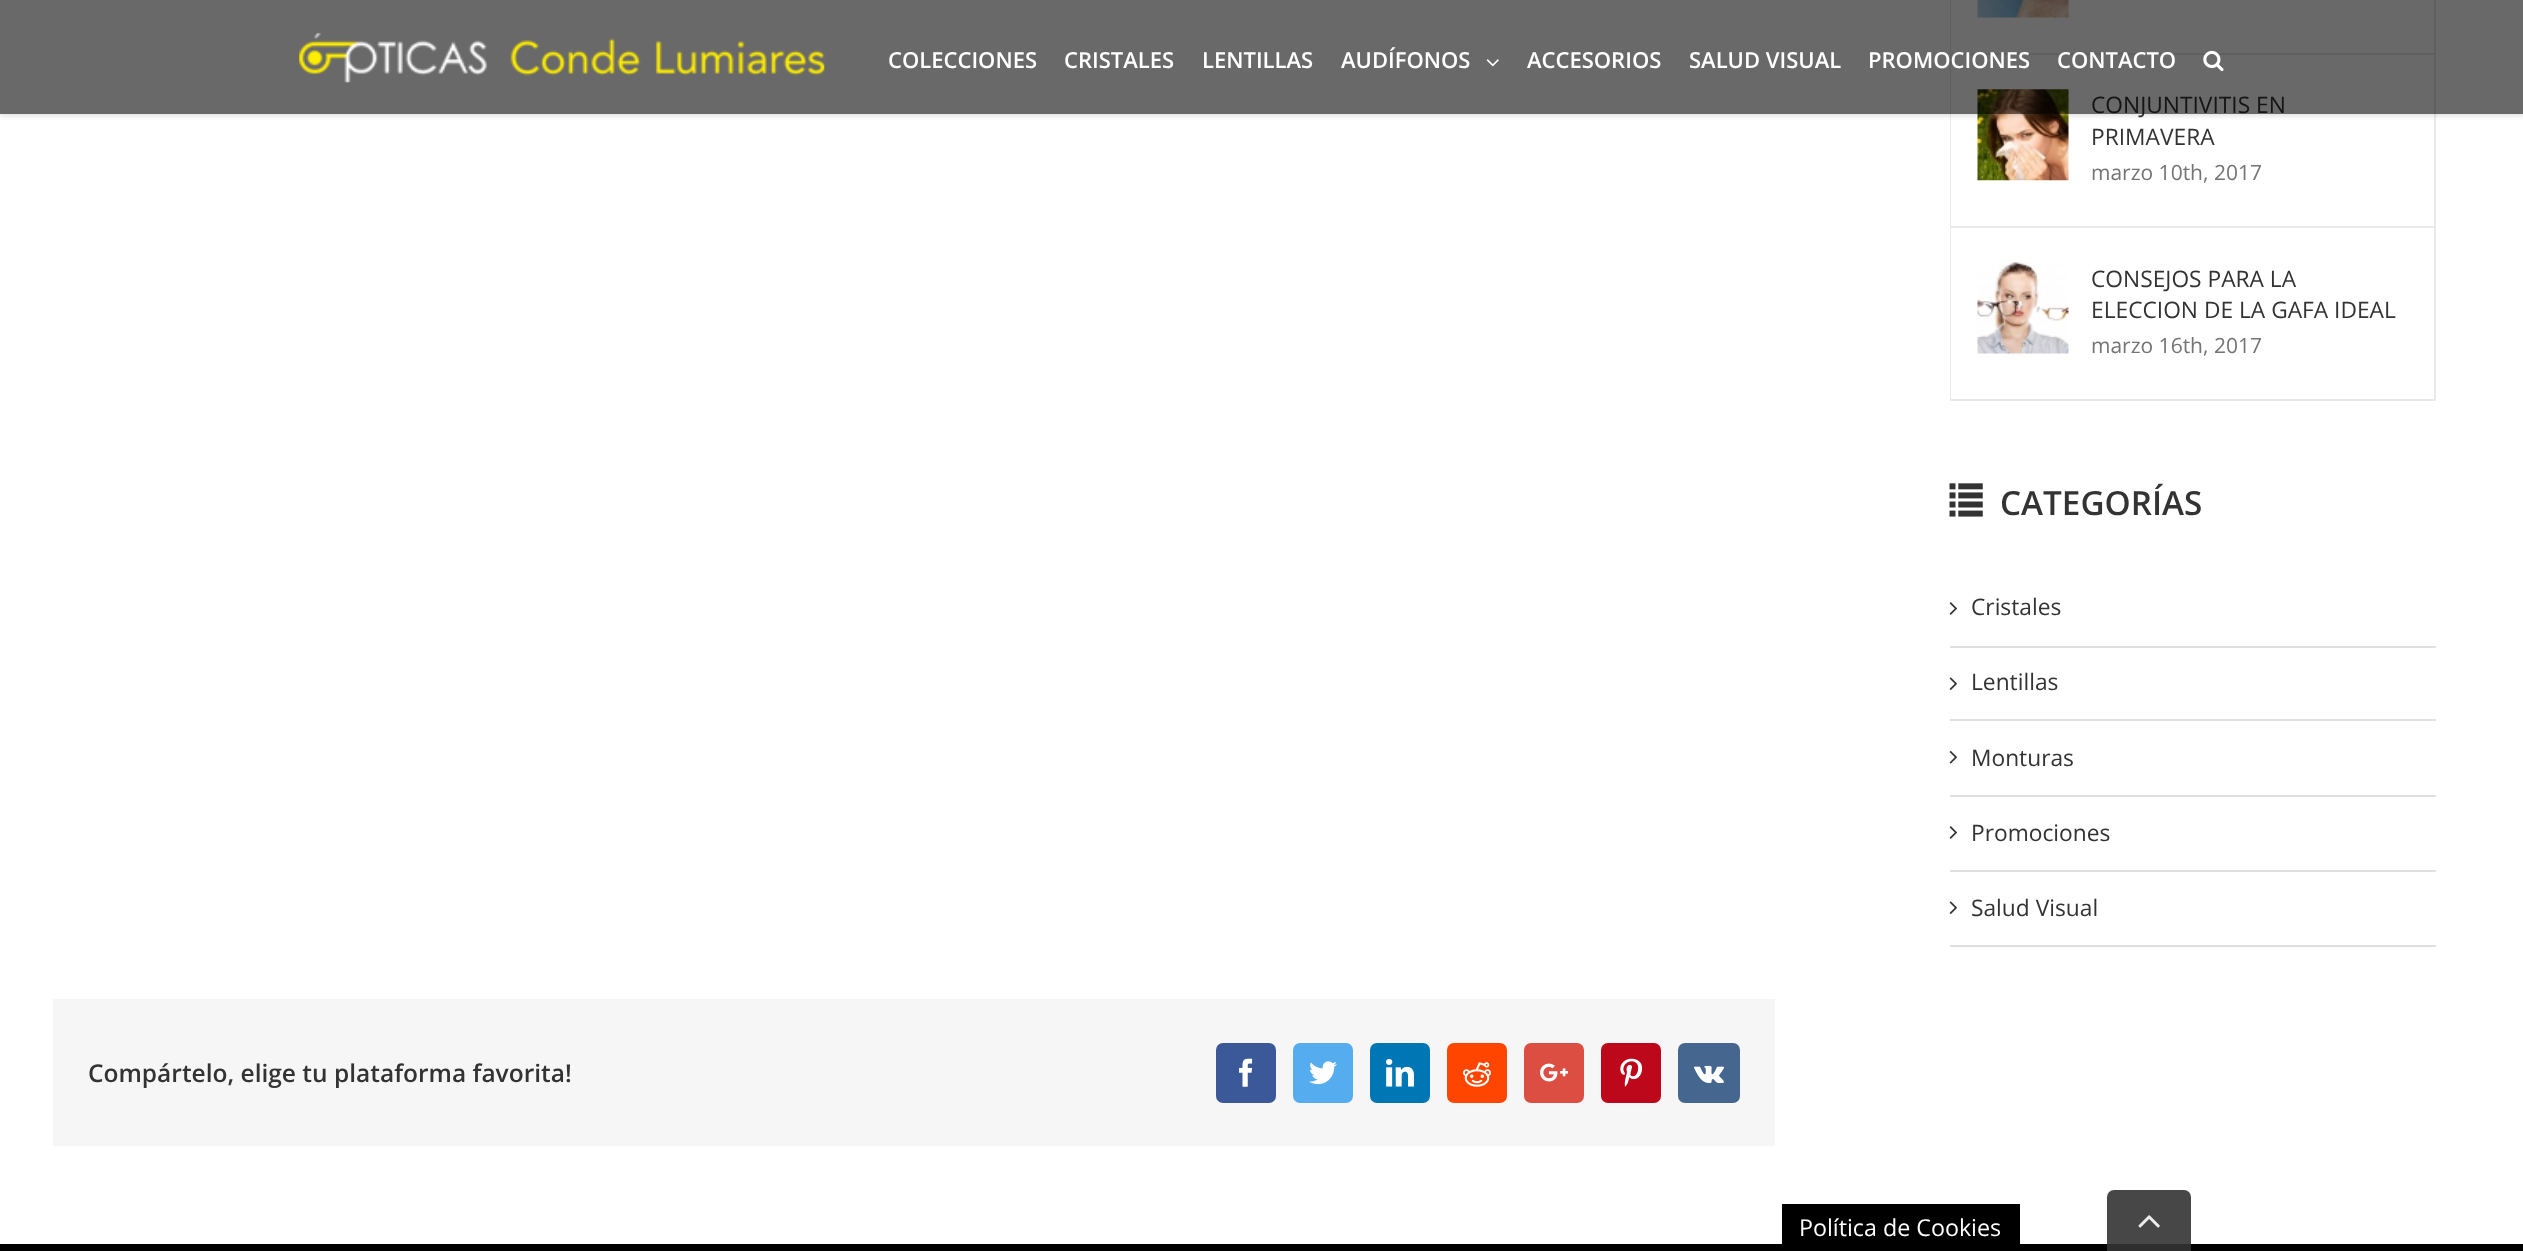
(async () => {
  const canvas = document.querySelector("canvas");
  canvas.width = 2523;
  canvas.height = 1251;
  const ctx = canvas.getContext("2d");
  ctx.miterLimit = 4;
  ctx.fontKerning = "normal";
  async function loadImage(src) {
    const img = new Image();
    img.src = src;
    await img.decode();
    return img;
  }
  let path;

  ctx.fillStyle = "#ffffff";
  ctx.fillRect(0, 0, 2523, 1251);
  ctx.strokeStyle = "#ebeaea";
  ctx.lineWidth = 2;
  ctx.strokeRect(1951, -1, 484, 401);
  ctx.fillRect(1951, 0, 1, 399);
  ctx.fillStyle = "#ebeaea";
  ctx.fillRect(1951, 53, 483, 2);
  ctx.drawImage(await loadImage("img/4.png"), 1977, 0, 92, 18);
  ctx.drawImage(await loadImage("img/5.png"), 1977, 89, 92, 92);
  ctx.save();
  path = new Path2D("M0 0H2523V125H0ZM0 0H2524V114H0Z");
  ctx.clip(path, "evenodd");
  ctx.fillStyle = "rgba(0, 0, 0, 0.12)";
  ctx.filter = "blur(2.5px)";
  ctx.beginPath();
  ctx.rect(0, 2, 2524, 114);
  ctx.fill();
  ctx.filter = "none";
  ctx.restore();
  ctx.fillRect(1951, 226, 483, 2);
  ctx.drawImage(await loadImage("img/6.png"), 1977, 262, 92, 92);
  ctx.drawImage(await loadImage("img/7.png"), 1949, 483, 34, 34);
  ctx.fillStyle = "#e0dede";
  ctx.fillRect(1950, 646, 486, 2);
  ctx.drawImage(await loadImage("img/8.png"), 1949, 602, 8, 13);
  ctx.fillRect(1950, 719, 486, 2);
  ctx.drawImage(await loadImage("img/9.png"), 1949, 677, 8, 13);
  ctx.fillRect(1950, 795, 486, 2);
  ctx.drawImage(await loadImage("img/10.png"), 1949, 751, 8, 13);
  ctx.fillRect(1950, 870, 486, 2);
  ctx.drawImage(await loadImage("img/8.png"), 1949, 826, 8, 13);
  ctx.fillRect(1950, 945, 486, 2);
  ctx.drawImage(await loadImage("img/9.png"), 1949, 901, 8, 13);
  ctx.fillStyle = "#f6f6f6";
  ctx.fillRect(53, 999, 1722, 147);
  ctx.fillStyle = "#3b5998";
  ctx.beginPath();
  ctx.roundRect(1217, 1044, 58, 58, 6);
  ctx.fill();
  ctx.strokeStyle = "#3b5998";
  ctx.stroke();
  ctx.drawImage(await loadImage("img/11.png"), 1239, 1058, 14, 29);
  ctx.fillStyle = "#55acee";
  ctx.beginPath();
  ctx.roundRect(1294, 1044, 58, 58, 6);
  ctx.fill();
  ctx.strokeStyle = "#55acee";
  ctx.stroke();
  ctx.drawImage(await loadImage("img/12.png"), 1309, 1061, 28, 24);
  ctx.fillStyle = "#0077b5";
  ctx.beginPath();
  ctx.roundRect(1371, 1044, 58, 58, 6);
  ctx.fill();
  ctx.strokeStyle = "#0077b5";
  ctx.stroke();
  ctx.drawImage(await loadImage("img/13.png"), 1386, 1059, 28, 28);
  ctx.fillStyle = "#ff4500";
  ctx.beginPath();
  ctx.roundRect(1448, 1044, 58, 58, 6);
  ctx.fill();
  ctx.strokeStyle = "#ff4500";
  ctx.stroke();
  ctx.drawImage(await loadImage("img/14.png"), 1463, 1062, 28, 25);
  ctx.fillStyle = "#dc4e41";
  ctx.beginPath();
  ctx.roundRect(1525, 1044, 58, 58, 6);
  ctx.fill();
  ctx.strokeStyle = "#dc4e41";
  ctx.stroke();
  ctx.drawImage(await loadImage("img/15.png"), 1540, 1063, 28, 19);
  ctx.fillStyle = "#bd081c";
  ctx.beginPath();
  ctx.roundRect(1602, 1044, 58, 58, 6);
  ctx.fill();
  ctx.strokeStyle = "#bd081c";
  ctx.stroke();
  ctx.drawImage(await loadImage("img/16.png"), 1620, 1058, 23, 29);
  ctx.fillStyle = "#45668e";
  ctx.beginPath();
  ctx.roundRect(1679, 1044, 60, 58, 6);
  ctx.fill();
  ctx.strokeStyle = "#45668e";
  ctx.stroke();
  ctx.drawImage(await loadImage("img/17.png"), 1694, 1065, 30, 18);
  ctx.fillStyle = "#000000";
  ctx.fillRect(0, 1244, 2523, 7);
  ctx.fillRect(1782, 1204, 238, 40);
  ctx.fillStyle = "rgba(51, 51, 51, 0.9)";
  ctx.beginPath();
  ctx.roundRect(2107, 1190, 84, 61, [7, 7, 0, 0]);
  ctx.fill();
  ctx.drawImage(await loadImage("img/18.png"), 2138, 1215, 22, 13);
  ctx.font = "22.75px Open Sans";
  ctx.fillStyle = "#333333";
  ctx.fillText("CONJUNTIVITIS EN", 2091, 113);
  ctx.fillStyle = "rgba(0, 0, 0, 0.59)";
  ctx.fillRect(0, 0, 2523, 114);
  ctx.drawImage(await loadImage("img/3.png"), 2203, 50, 21, 22);
  ctx.font = "600 22px Open Sans";
  ctx.fillStyle = "#ffffff";
  for (const [text, x, y] of [
    ["CONTACTO", 2057, 68],
    ["PROMOCIONES", 1868, 68],
    ["SALUD VISUAL", 1689, 68],
    ["ACCESORIOS", 1527, 68],
  ]) {
    ctx.fillText(text, x, y);
  }
  ctx.drawImage(await loadImage("img/2.png"), 1486, 59, 13, 8);
  for (const [text, x, y] of [
    ["AUDÍFONOS", 1341, 68],
    ["LENTILLAS", 1202, 68],
    ["CRISTALES", 1064, 68],
    ["COLECCIONES", 888, 68],
  ]) {
    ctx.fillText(text, x, y);
  }
  ctx.drawImage(await loadImage("img/1.png"), 299, 32, 526, 51);
  ctx.font = "22.75px Open Sans";
  ctx.fillStyle = "#333333";
  ctx.fillText("PRIMAVERA", 2091, 145);
  ctx.font = "21px Open Sans";
  ctx.fillStyle = "#747474";
  ctx.fillText("marzo 10th, 2017", 2091, 180);
  ctx.font = "22.75px Open Sans";
  ctx.fillStyle = "#333333";
  ctx.fillText("CONSEJOS PARA LA", 2091, 287);
  ctx.fillText("ELECCION DE LA GAFA IDEAL", 2091, 318);
  ctx.font = "21px Open Sans";
  ctx.fillStyle = "#747474";
  ctx.fillText("marzo 16th, 2017", 2091, 353);
  ctx.font = "600 33.25px Open Sans";
  ctx.fillStyle = "#333333";
  ctx.fillText("CATEGORÍAS", 2000, 515);
  ctx.font = "22.75px Open Sans";
  for (const [text, x, y] of [
    ["Cristales", 1971, 615],
    ["Lentillas", 1971, 690],
    ["Monturas", 1971, 766],
    ["Promociones", 1971, 841],
    ["Salud Visual", 1971, 916],
  ]) {
    ctx.fillText(text, x, y);
  }
  ctx.font = "600 24.5px Open Sans";
  ctx.fillText("Compártelo, elige tu plataforma favorita!", 88, 1082);
  ctx.font = "23.25px Open Sans";
  ctx.fillStyle = "#ffffff";
  ctx.fillText("Política de Cookies", 1799, 1236);
})();
